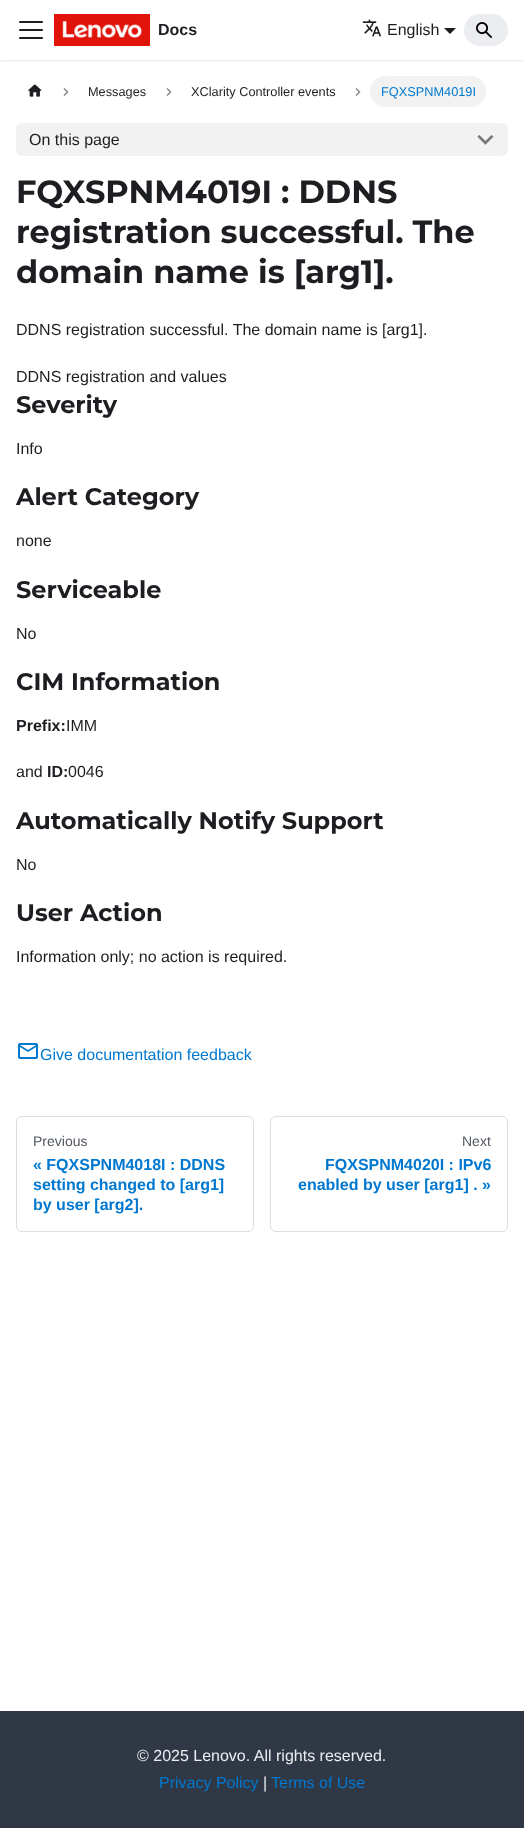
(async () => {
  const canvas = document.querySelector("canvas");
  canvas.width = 524;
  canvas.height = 1828;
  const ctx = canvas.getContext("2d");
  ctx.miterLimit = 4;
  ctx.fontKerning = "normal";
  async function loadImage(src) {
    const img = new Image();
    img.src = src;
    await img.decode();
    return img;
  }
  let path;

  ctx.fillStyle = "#ffffff";
  ctx.fillRect(0, 0, 524, 1828);
  ctx.save();
  ctx.beginPath();
  ctx.rect(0, 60, 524, 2);
  ctx.clip();
  ctx.fillStyle = "rgba(0, 0, 0, 0.1)";
  ctx.filter = "blur(1px)";
  ctx.beginPath();
  ctx.rect(0, 1, 524, 60);
  ctx.fill();
  ctx.filter = "none";
  ctx.restore();
  ctx.drawImage(await loadImage("img/1.png"), 19, 21, 24, 18);
  ctx.drawImage(await loadImage("img/2.png"), 54, 14, 96, 32);
  ctx.drawImage(await loadImage("img/3.png"), 362, 19, 20, 18);
  ctx.fillStyle = "#1c1e21";
  path = new Path2D("M444 28H456L450 34Z");
  ctx.fill(path);
  ctx.fillStyle = "#ebedf0";
  ctx.beginPath();
  ctx.roundRect(464, 14, 44, 32, 16);
  ctx.fill();
  ctx.drawImage(await loadImage("img/4.png"), 476, 22, 16, 16);
  ctx.drawImage(await loadImage("img/5.png"), 28, 84, 14, 13);
  ctx.drawImage(await loadImage("img/6.png"), 63, 88, 6, 8);
  ctx.drawImage(await loadImage("img/6.png"), 166, 88, 6, 8);
  ctx.drawImage(await loadImage("img/6.png"), 355, 88, 6, 8);
  ctx.fillStyle = "#f2f2f2";
  ctx.beginPath();
  ctx.roundRect(370, 76, 116, 31, 15.5);
  ctx.fill();
  ctx.beginPath();
  ctx.roundRect(16, 123, 492, 33, 6);
  ctx.fill();
  ctx.drawImage(await loadImage("img/7.png"), 477, 135, 17, 10);
  ctx.drawImage(await loadImage("img/8.png"), 18, 1043, 20, 16);
  ctx.beginPath();
  ctx.roundRect(16.5, 1116.5, 237, 115, 5.5);
  ctx.strokeStyle = "#dadde1";
  ctx.stroke();
  ctx.beginPath();
  ctx.roundRect(270.5, 1116.5, 237, 115, 5.5);
  ctx.stroke();
  ctx.fillStyle = "#303846";
  ctx.fillRect(0, 1711, 524, 117);
  ctx.font = "bold 16px Liberation Sans";
  ctx.fillStyle = "#1c1e21";
  ctx.fillText("Docs", 158, 35);
  ctx.font = "16px Liberation Sans";
  ctx.fillText("English", 387, 35);
  ctx.font = "12.75px Liberation Sans";
  ctx.fillText("Messages", 88, 96);
  ctx.fillText("XClarity Controller events", 191, 96);
  ctx.fillStyle = "#0078d0";
  ctx.fillText("FQXSPNM4019I", 381, 96);
  ctx.font = "16px Liberation Sans";
  ctx.fillStyle = "#1c1e21";
  ctx.fillText("On this page", 29, 145);
  ctx.font = "bold 32px Montserrat";
  for (const [text, x, y] of [
    ["FQXSPNM4019I : DDNS", 16, 203],
    ["registration successful. The", 16, 243],
    ["domain name is [arg1].", 16, 283],
  ]) {
    ctx.fillText(text, x, y);
  }
  ctx.font = "16px Liberation Sans";
  ctx.fillText("DDNS registration successful. The domain name is [arg1].", 16, 335);
  ctx.fillText("DDNS registration and values", 16, 382);
  ctx.font = "bold 24px Montserrat";
  ctx.fillText("Severity", 16, 413);
  ctx.font = "16px Liberation Sans";
  ctx.fillText("Info", 16, 454);
  ctx.font = "bold 24px Montserrat";
  ctx.fillText("Alert Category", 16, 505);
  ctx.font = "16px Liberation Sans";
  ctx.fillText("none", 16, 546);
  ctx.font = "bold 24px Montserrat";
  ctx.fillText("Serviceable", 16, 598);
  ctx.font = "16px Liberation Sans";
  ctx.fillText("No", 16, 639);
  ctx.font = "bold 24px Montserrat";
  ctx.fillText("CIM Information", 16, 690);
  ctx.font = "bold 16px Liberation Sans";
  ctx.fillText("Prefix:", 16, 731);
  ctx.font = "16px Liberation Sans";
  ctx.fillText("IMM", 66, 731);
  ctx.fillText("and", 16, 777);
  ctx.font = "bold 16px Liberation Sans";
  ctx.fillText("ID:", 47, 777);
  ctx.font = "16px Liberation Sans";
  ctx.fillText("0046", 68, 777);
  ctx.font = "bold 24px Montserrat";
  ctx.fillText("Automatically Notify Support", 16, 829);
  ctx.font = "16px Liberation Sans";
  ctx.fillText("No", 16, 870);
  ctx.font = "bold 24px Montserrat";
  ctx.fillText("User Action", 16, 921);
  ctx.font = "16px Liberation Sans";
  ctx.fillText("Information only; no action is required.", 16, 962);
  ctx.fillStyle = "#0078d0";
  ctx.fillText("Give documentation feedback", 40, 1060);
  ctx.font = "14px Liberation Sans";
  ctx.fillStyle = "#525860";
  ctx.fillText("Previous", 33, 1146);
  ctx.font = "bold 16px Liberation Sans";
  ctx.fillStyle = "#0078d0";
  for (const [text, x, y] of [
    ["« FQXSPNM4018I : DDNS", 33, 1170],
    ["setting changed to [arg1]", 33, 1190],
    ["by user [arg2].", 33, 1210],
  ]) {
    ctx.fillText(text, x, y);
  }
  ctx.font = "14px Liberation Sans";
  ctx.fillStyle = "#525860";
  ctx.fillText("Next", 462, 1146);
  ctx.font = "bold 16px Liberation Sans";
  ctx.fillStyle = "#0078d0";
  ctx.fillText("FQXSPNM4020I : IPv6", 325, 1170);
  ctx.fillText("enabled by user [arg1] . »", 298, 1190);
  ctx.font = "16px Liberation Sans";
  ctx.fillStyle = "#ebedf0";
  ctx.fillText("© 2025 Lenovo. All rights reserved.", 137, 1761);
  ctx.fillStyle = "#0078d0";
  ctx.fillText("Privacy Policy", 159, 1788);
  ctx.fillStyle = "#ebedf0";
  ctx.fillText("|", 263, 1788);
  ctx.fillStyle = "#0078d0";
  ctx.fillText("Terms of Use", 271, 1788);
})();
